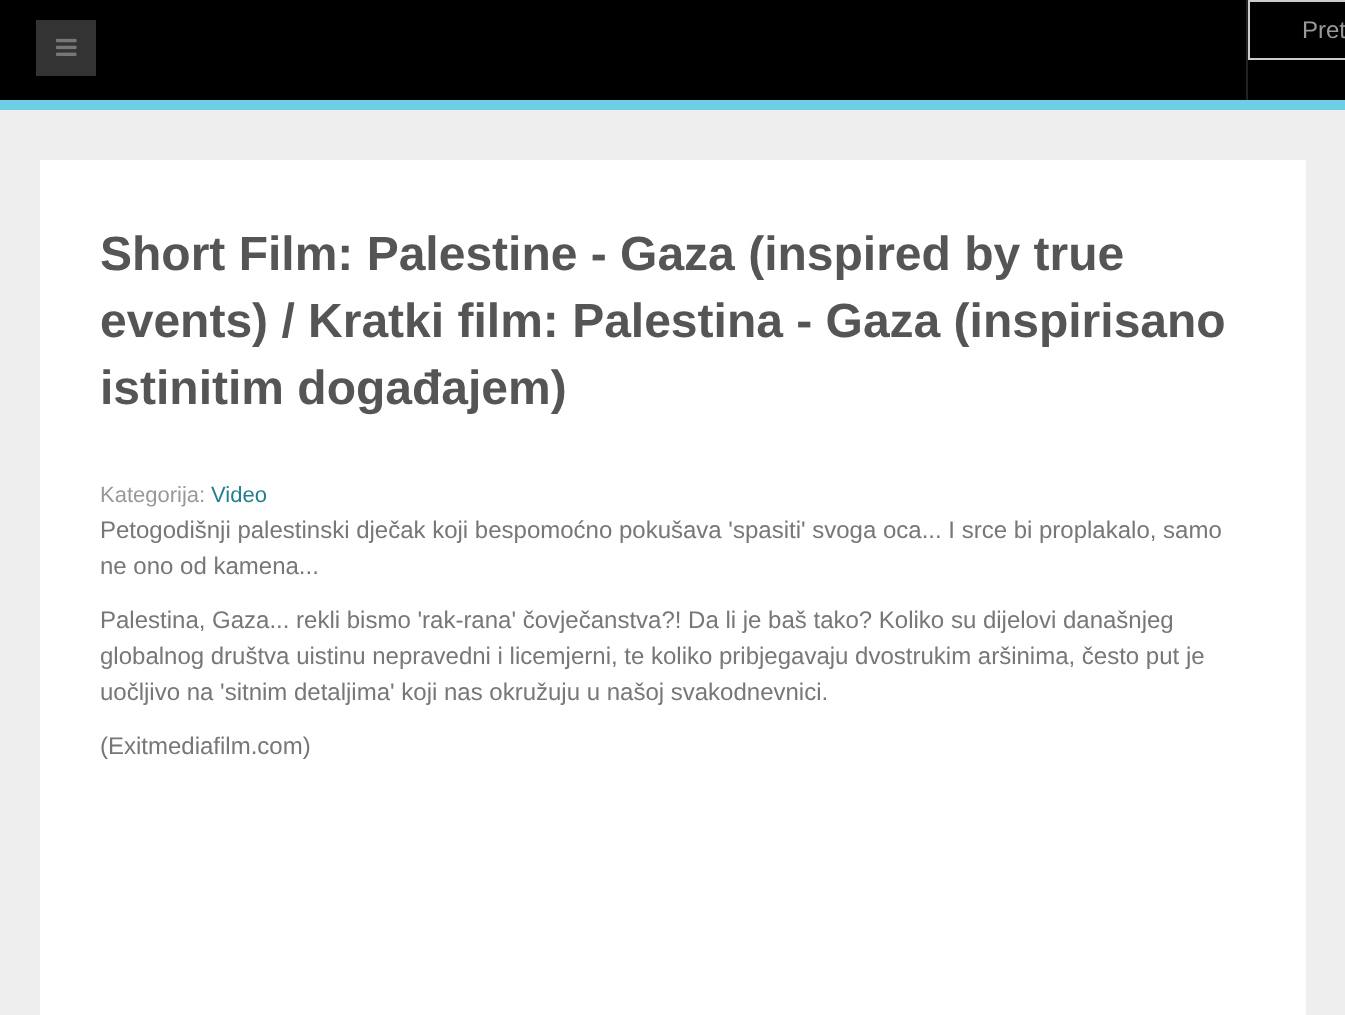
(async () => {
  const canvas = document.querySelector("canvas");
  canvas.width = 1345;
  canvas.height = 1015;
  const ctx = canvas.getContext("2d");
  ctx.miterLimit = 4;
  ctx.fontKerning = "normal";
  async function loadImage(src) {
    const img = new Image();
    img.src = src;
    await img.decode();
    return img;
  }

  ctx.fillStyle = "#eeeeee";
  ctx.fillRect(0, 0, 1345, 1015);
  for (const [x, y, w, h, color] of [
    [0, 0, 1345, 100, "#000000"],
    [0, 100, 1345, 10, "#6fcde4"],
    [36, 20, 60, 56, "#333333"],
  ]) {
    ctx.fillStyle = color;
    ctx.fillRect(x, y, w, h);
  }
  ctx.drawImage(await loadImage("img/1.png"), 56, 38, 21, 18);
  ctx.fillStyle = "#222222";
  ctx.fillRect(1246, 0, 2, 100);
  ctx.strokeStyle = "#cccccc";
  ctx.lineWidth = 2;
  ctx.strokeRect(1249, 1, 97, 58);
  ctx.fillStyle = "#ffffff";
  ctx.fillRect(40, 160, 1266, 855);
  ctx.font = "24px Liberation Sans";
  ctx.fillStyle = "#999999";
  ctx.fillText("Pret", 1302, 38);
  ctx.font = "bold 48px Liberation Sans";
  ctx.fillStyle = "#555555";
  for (const [text, x, y] of [
    ["Short Film: Palestine - Gaza (inspired by true", 100, 270],
    ["events) / Kratki film: Palestina - Gaza (inspirisano", 100, 337],
    ["istinitim događajem)", 100, 404],
  ]) {
    ctx.fillText(text, x, y);
  }
  ctx.font = "22px Liberation Sans";
  ctx.fillStyle = "#999999";
  ctx.fillText("Kategorija:", 100, 502);
  ctx.fillStyle = "#217f90";
  ctx.fillText("Video", 211, 502);
  ctx.font = "24px Liberation Sans";
  ctx.fillStyle = "#777777";
  for (const [text, x, y] of [
    ["Petogodišnji palestinski dječak koji bespomoćno pokušava 'spasiti' svoga oca... I srce bi proplakalo, samo", 100, 538],
    ["ne ono od kamena...", 100, 574],
    ["Palestina, Gaza... rekli bismo 'rak-rana' čovječanstva?! Da li je baš tako? Koliko su dijelovi današnjeg", 100, 628],
    ["globalnog društva uistinu nepravedni i licemjerni, te koliko pribjegavaju dvostrukim aršinima, često put je", 100, 664],
    ["uočljivo na 'sitnim detaljima' koji nas okružuju u našoj svakodnevnici.", 100, 700],
    ["(Exitmediafilm.com)", 100, 754],
  ]) {
    ctx.fillText(text, x, y);
  }
})();
